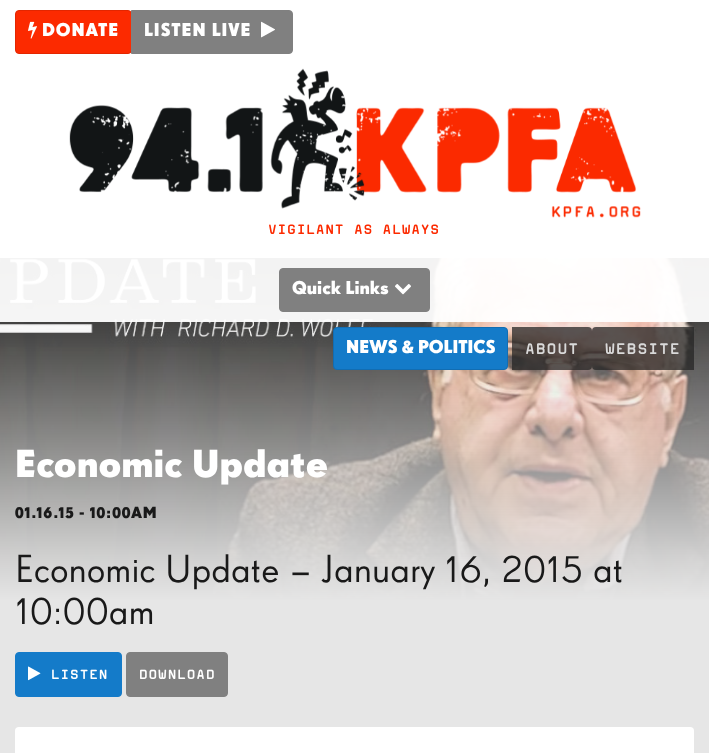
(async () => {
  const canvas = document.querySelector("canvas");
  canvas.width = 709;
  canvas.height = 753;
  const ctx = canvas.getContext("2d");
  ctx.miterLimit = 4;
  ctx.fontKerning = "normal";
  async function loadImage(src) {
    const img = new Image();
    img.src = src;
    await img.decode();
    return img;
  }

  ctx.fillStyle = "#e6e6e6";
  ctx.fillRect(0, 0, 709, 753);
  ctx.fillStyle = "#ffffff";
  ctx.fillRect(0, 0, 709, 258);
  ctx.fillStyle = "#fc2a00";
  ctx.beginPath();
  ctx.roundRect(15.5, 10.5, 116, 43, 3.5);
  ctx.fill();
  ctx.strokeStyle = "#e32600";
  ctx.stroke();
  ctx.drawImage(await loadImage("img/1.png"), 28, 21, 9, 18);
  ctx.fillStyle = "#808080";
  ctx.beginPath();
  ctx.roundRect(131.5, 10.5, 161, 43, [0, 3.5, 3.5, 0]);
  ctx.fill();
  ctx.strokeStyle = "#808080";
  ctx.stroke();
  ctx.drawImage(await loadImage("img/2.png"), 261, 21, 14, 17);
  ctx.drawImage(await loadImage("img/3.png"), 69, 68, 572, 150);
  ctx.drawImage(await loadImage("img/4.png"), 0, 258, 709, 342);
  ctx.fillStyle = "rgba(255, 255, 255, 0.95)";
  ctx.fillRect(0, 258, 709, 64);
  ctx.fillStyle = "#808080";
  ctx.beginPath();
  ctx.roundRect(279.5, 268.5, 150, 43, 3.5);
  ctx.fill();
  ctx.stroke();
  ctx.drawImage(await loadImage("img/5.png"), 395, 284, 16, 11);
  ctx.fillStyle = "#147bc9";
  ctx.beginPath();
  ctx.roundRect(333.5, 327.5, 174, 42, 3.5);
  ctx.fill();
  ctx.strokeStyle = "#126db2";
  ctx.stroke();
  ctx.fillStyle = "rgba(38, 38, 38, 0.75)";
  ctx.beginPath();
  ctx.roundRect(512, 327, 80, 43, [0, 4, 4, 0]);
  ctx.fill();
  ctx.beginPath();
  ctx.roundRect(592, 327, 102, 43, [4, 0, 0, 4]);
  ctx.fill();
  ctx.fillStyle = "#147bc9";
  ctx.beginPath();
  ctx.roundRect(15.5, 652.5, 106, 44, 3.5);
  ctx.fill();
  ctx.strokeStyle = "#147bc9";
  ctx.stroke();
  ctx.drawImage(await loadImage("img/6.png"), 28, 666, 13, 15);
  ctx.fillStyle = "#808080";
  ctx.beginPath();
  ctx.roundRect(126.5, 652.5, 101, 44, 3.5);
  ctx.fill();
  ctx.strokeStyle = "#808080";
  ctx.stroke();
  ctx.fillStyle = "#ffffff";
  ctx.beginPath();
  ctx.roundRect(15, 727, 679, 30, 4);
  ctx.fill();
  ctx.letterSpacing = "0.9px";
  ctx.font = "bold 18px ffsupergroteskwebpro";
  ctx.fillText("DONATE", 42, 36);
  ctx.fillText("LISTEN LIVE", 144, 36);
  ctx.letterSpacing = "0.75px";
  ctx.font = "bold 16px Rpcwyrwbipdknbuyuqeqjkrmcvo";
  ctx.fillStyle = "#fc2a00";
  ctx.fillText("VIGILANT AS ALWAYS", 268, 234);
  ctx.letterSpacing = "0px";
  ctx.font = "bold 18px ffsupergroteskwebpro";
  ctx.fillStyle = "#ffffff";
  ctx.fillText("Quick Links", 292, 294);
  ctx.fillText("NEWS & POLITICS", 346, 353);
  ctx.letterSpacing = "0.9px";
  ctx.font = "bold 18px Rpcwyrwbipdknbuyuqeqjkrmcvo";
  ctx.fillStyle = "#d9d9d9";
  ctx.fillText("ABOUT", 525, 354);
  ctx.fillText("WEBSITE", 605, 354);
  ctx.letterSpacing = "0px";
  ctx.font = "bold 38px ffsupergroteskwebpro";
  ctx.fillStyle = "#ffffff";
  ctx.fillText("Economic Update", 15, 477);
  ctx.letterSpacing = "0.75px";
  ctx.font = "bold 15.75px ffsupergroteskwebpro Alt";
  ctx.fillStyle = "#191919";
  ctx.fillText("01.16.15 - 10:00AM", 15, 518);
  ctx.letterSpacing = "0px";
  ctx.font = "38px ffsupergroteskwebpro Alt";
  ctx.fillText("Economic Update – January 16, 2015 at", 15, 582);
  ctx.fillText("10:00am", 15, 624);
  ctx.letterSpacing = "0.9px";
  ctx.font = "bold 15.75px Rpcwyrwbipdknbuyuqeqjkrmcvo";
  ctx.fillStyle = "#ffffff";
  ctx.fillText("LISTEN", 51, 679);
  ctx.fillText("DOWNLOAD", 139, 679);
})();
